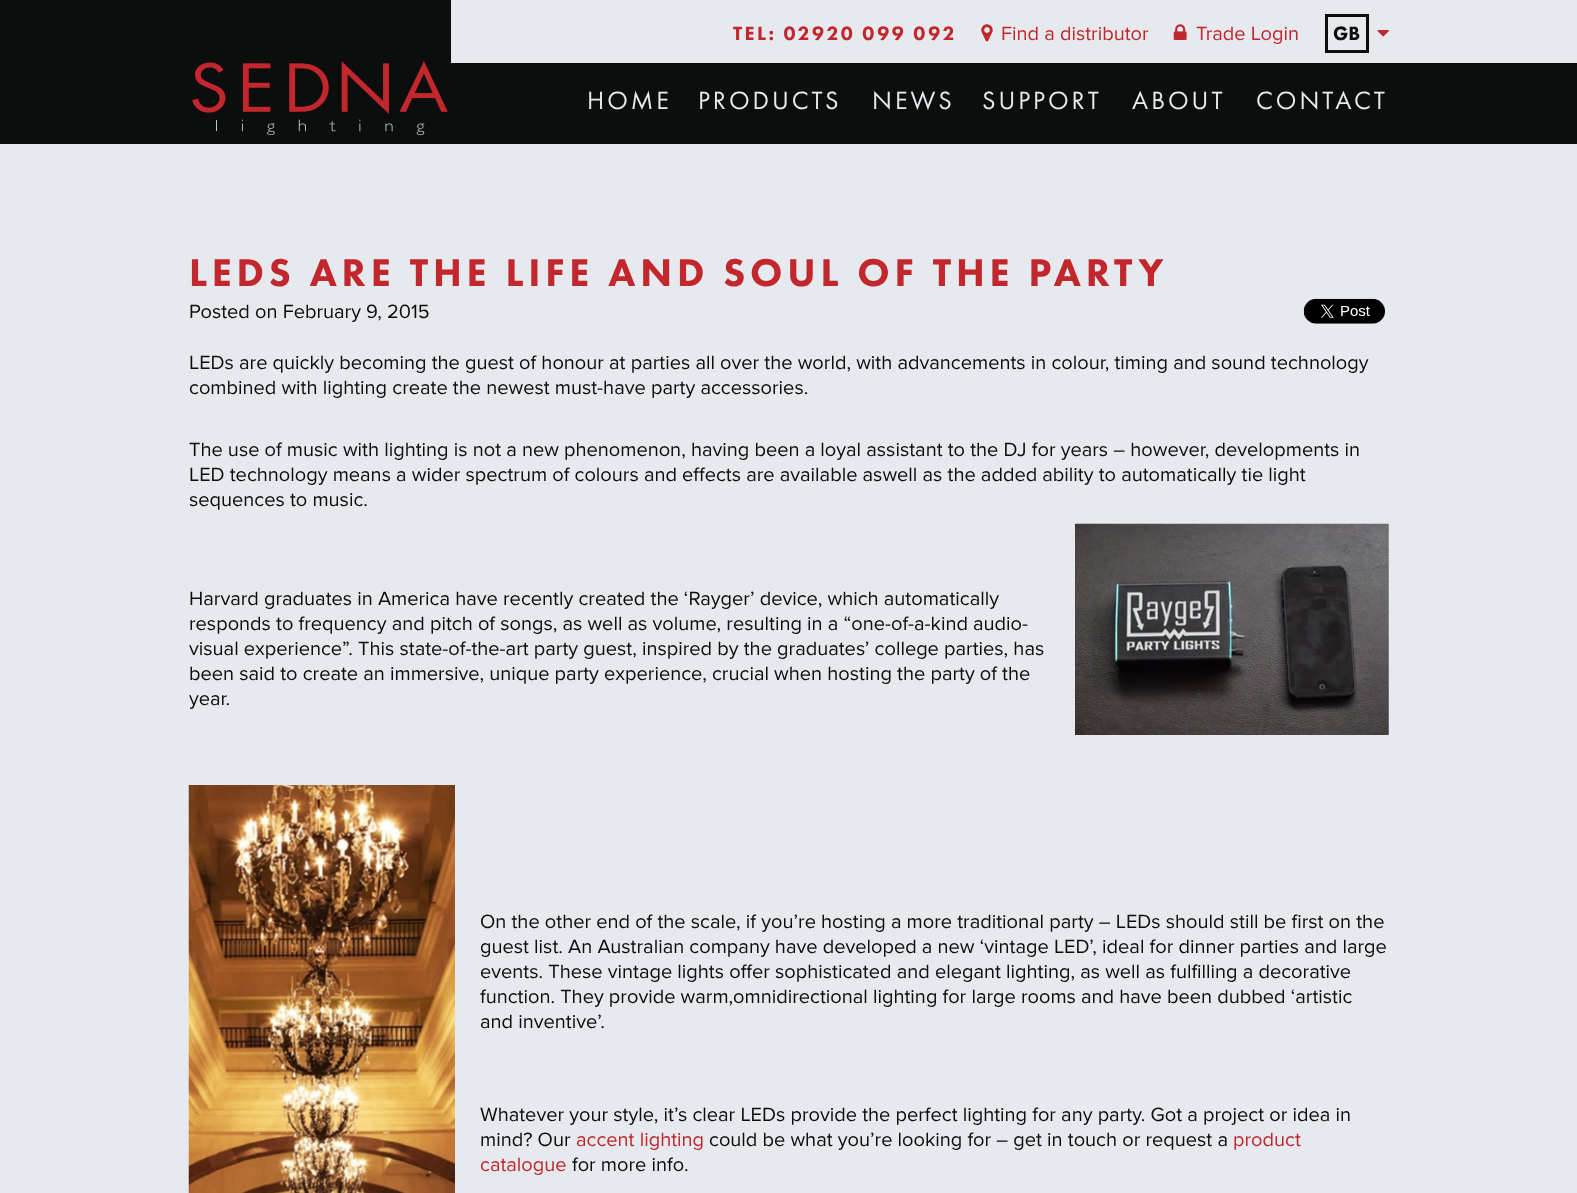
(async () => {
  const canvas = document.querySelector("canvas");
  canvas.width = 1577;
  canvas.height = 1193;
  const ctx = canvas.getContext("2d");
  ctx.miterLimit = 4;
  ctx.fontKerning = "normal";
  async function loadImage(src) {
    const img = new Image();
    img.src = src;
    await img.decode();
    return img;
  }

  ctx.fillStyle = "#e6eaee";
  ctx.fillRect(0, 0, 1577, 1193);
  ctx.fillStyle = "#0c0d0d";
  ctx.fillRect(0, 0, 1577, 144);
  ctx.fillStyle = "#e6eaee";
  ctx.fillRect(451, 0, 1126, 63);
  ctx.drawImage(await loadImage("img/1.png"), 981, 24, 12, 18);
  ctx.drawImage(await loadImage("img/2.png"), 1173, 24, 14, 16);
  ctx.strokeStyle = "#0c0d0d";
  ctx.lineWidth = 3;
  ctx.strokeRect(1326.5, 15.5, 41, 36);
  ctx.drawImage(await loadImage("img/3.png"), 1377, 30, 12, 7);
  ctx.drawImage(await loadImage("img/4.png"), 192, 61, 256, 75);
  ctx.drawImage(await loadImage("img/5.png"), 1303, 298, 82, 26);
  ctx.drawImage(await loadImage("img/6.png"), 1075, 523, 314, 212);
  ctx.drawImage(await loadImage("img/7.png"), 188, 785, 267, 408);
  ctx.letterSpacing = "2.4px";
  ctx.font = "900 20px Futura PT";
  ctx.fillStyle = "#c1272c";
  ctx.fillText("TEL: 02920 099 092", 733, 40);
  ctx.letterSpacing = "0px";
  ctx.font = "20px Proxima Nova";
  ctx.fillText("Find a distributor", 1001, 40);
  ctx.fillText("Trade Login", 1196, 40);
  ctx.font = "900 20px Futura PT";
  ctx.fillStyle = "#0c0d0d";
  ctx.fillText("GB", 1333, 40);
  ctx.letterSpacing = "3px";
  ctx.font = "26px Futura PT";
  ctx.fillStyle = "#e6eaee";
  for (const [text, x, y] of [
    ["HOME", 587, 109],
    ["PRODUCTS", 698, 109],
    ["NEWS", 872, 109],
    ["SUPPORT", 982, 109],
    ["ABOUT", 1132, 109],
    ["CONTACT", 1256, 109],
  ]) {
    ctx.fillText(text, x, y);
  }
  ctx.letterSpacing = "4.8px";
  ctx.font = "900 40px Futura PT";
  ctx.fillStyle = "#c1272c";
  ctx.fillText("LEDS ARE THE LIFE AND SOUL OF THE PARTY", 189, 286);
  ctx.letterSpacing = "0px";
  ctx.font = "20px Proxima Nova";
  ctx.fillStyle = "#0c0d0d";
  for (const [text, x, y] of [
    ["Posted on February 9, 2015", 189, 318],
    ["LEDs are quickly becoming the guest of honour at parties all over the world, with advancements in colour, timing and sound technology", 189, 369],
    ["combined with lighting create the newest must-have party accessories.", 189, 394],
    ["The use of music with lighting is not a new phenomenon, having been a loyal assistant to the DJ for years – however, developments in", 189, 456],
    ["LED technology means a wider spectrum of colours and effects are available aswell as the added ability to automatically tie light", 189, 481],
    ["sequences to music.", 189, 506],
    ["Harvard graduates in America have recently created the ‘Rayger’ device, which automatically", 189, 605],
    ["responds to frequency and pitch of songs, as well as volume, resulting in a “one-of-a-kind audio-", 189, 630],
    ["visual experience”. This state-of-the-art party guest, inspired by the graduates’ college parties, has", 189, 655],
    ["been said to create an immersive, unique party experience, crucial when hosting the party of the", 189, 680],
    ["year.", 189, 705],
    ["On the other end of the scale, if you’re hosting a more traditional party – LEDs should still be first on the", 480, 928],
    ["guest list. An Australian company have developed a new ‘vintage LED’, ideal for dinner parties and large", 480, 953],
    ["events. These vintage lights offer sophisticated and elegant lighting, as well as fulfilling a decorative", 480, 978],
    ["function. They provide warm,omnidirectional lighting for large rooms and have been dubbed ‘artistic", 480, 1003],
    ["and inventive’.", 480, 1028],
    ["Whatever your style, it’s clear LEDs provide the perfect lighting for any party. Got a project or idea in", 480, 1121],
    ["mind? Our", 480, 1146],
  ]) {
    ctx.fillText(text, x, y);
  }
  ctx.fillStyle = "#c1272c";
  ctx.fillText("accent lighting", 576, 1146);
  ctx.fillStyle = "#0c0d0d";
  ctx.fillText("could be what you’re looking for – get in touch or request a", 709, 1146);
  ctx.fillStyle = "#c1272c";
  ctx.fillText("product", 1233, 1146);
  ctx.fillText("catalogue", 480, 1171);
  ctx.fillStyle = "#0c0d0d";
  ctx.fillText("for more info.", 572, 1171);
})();
